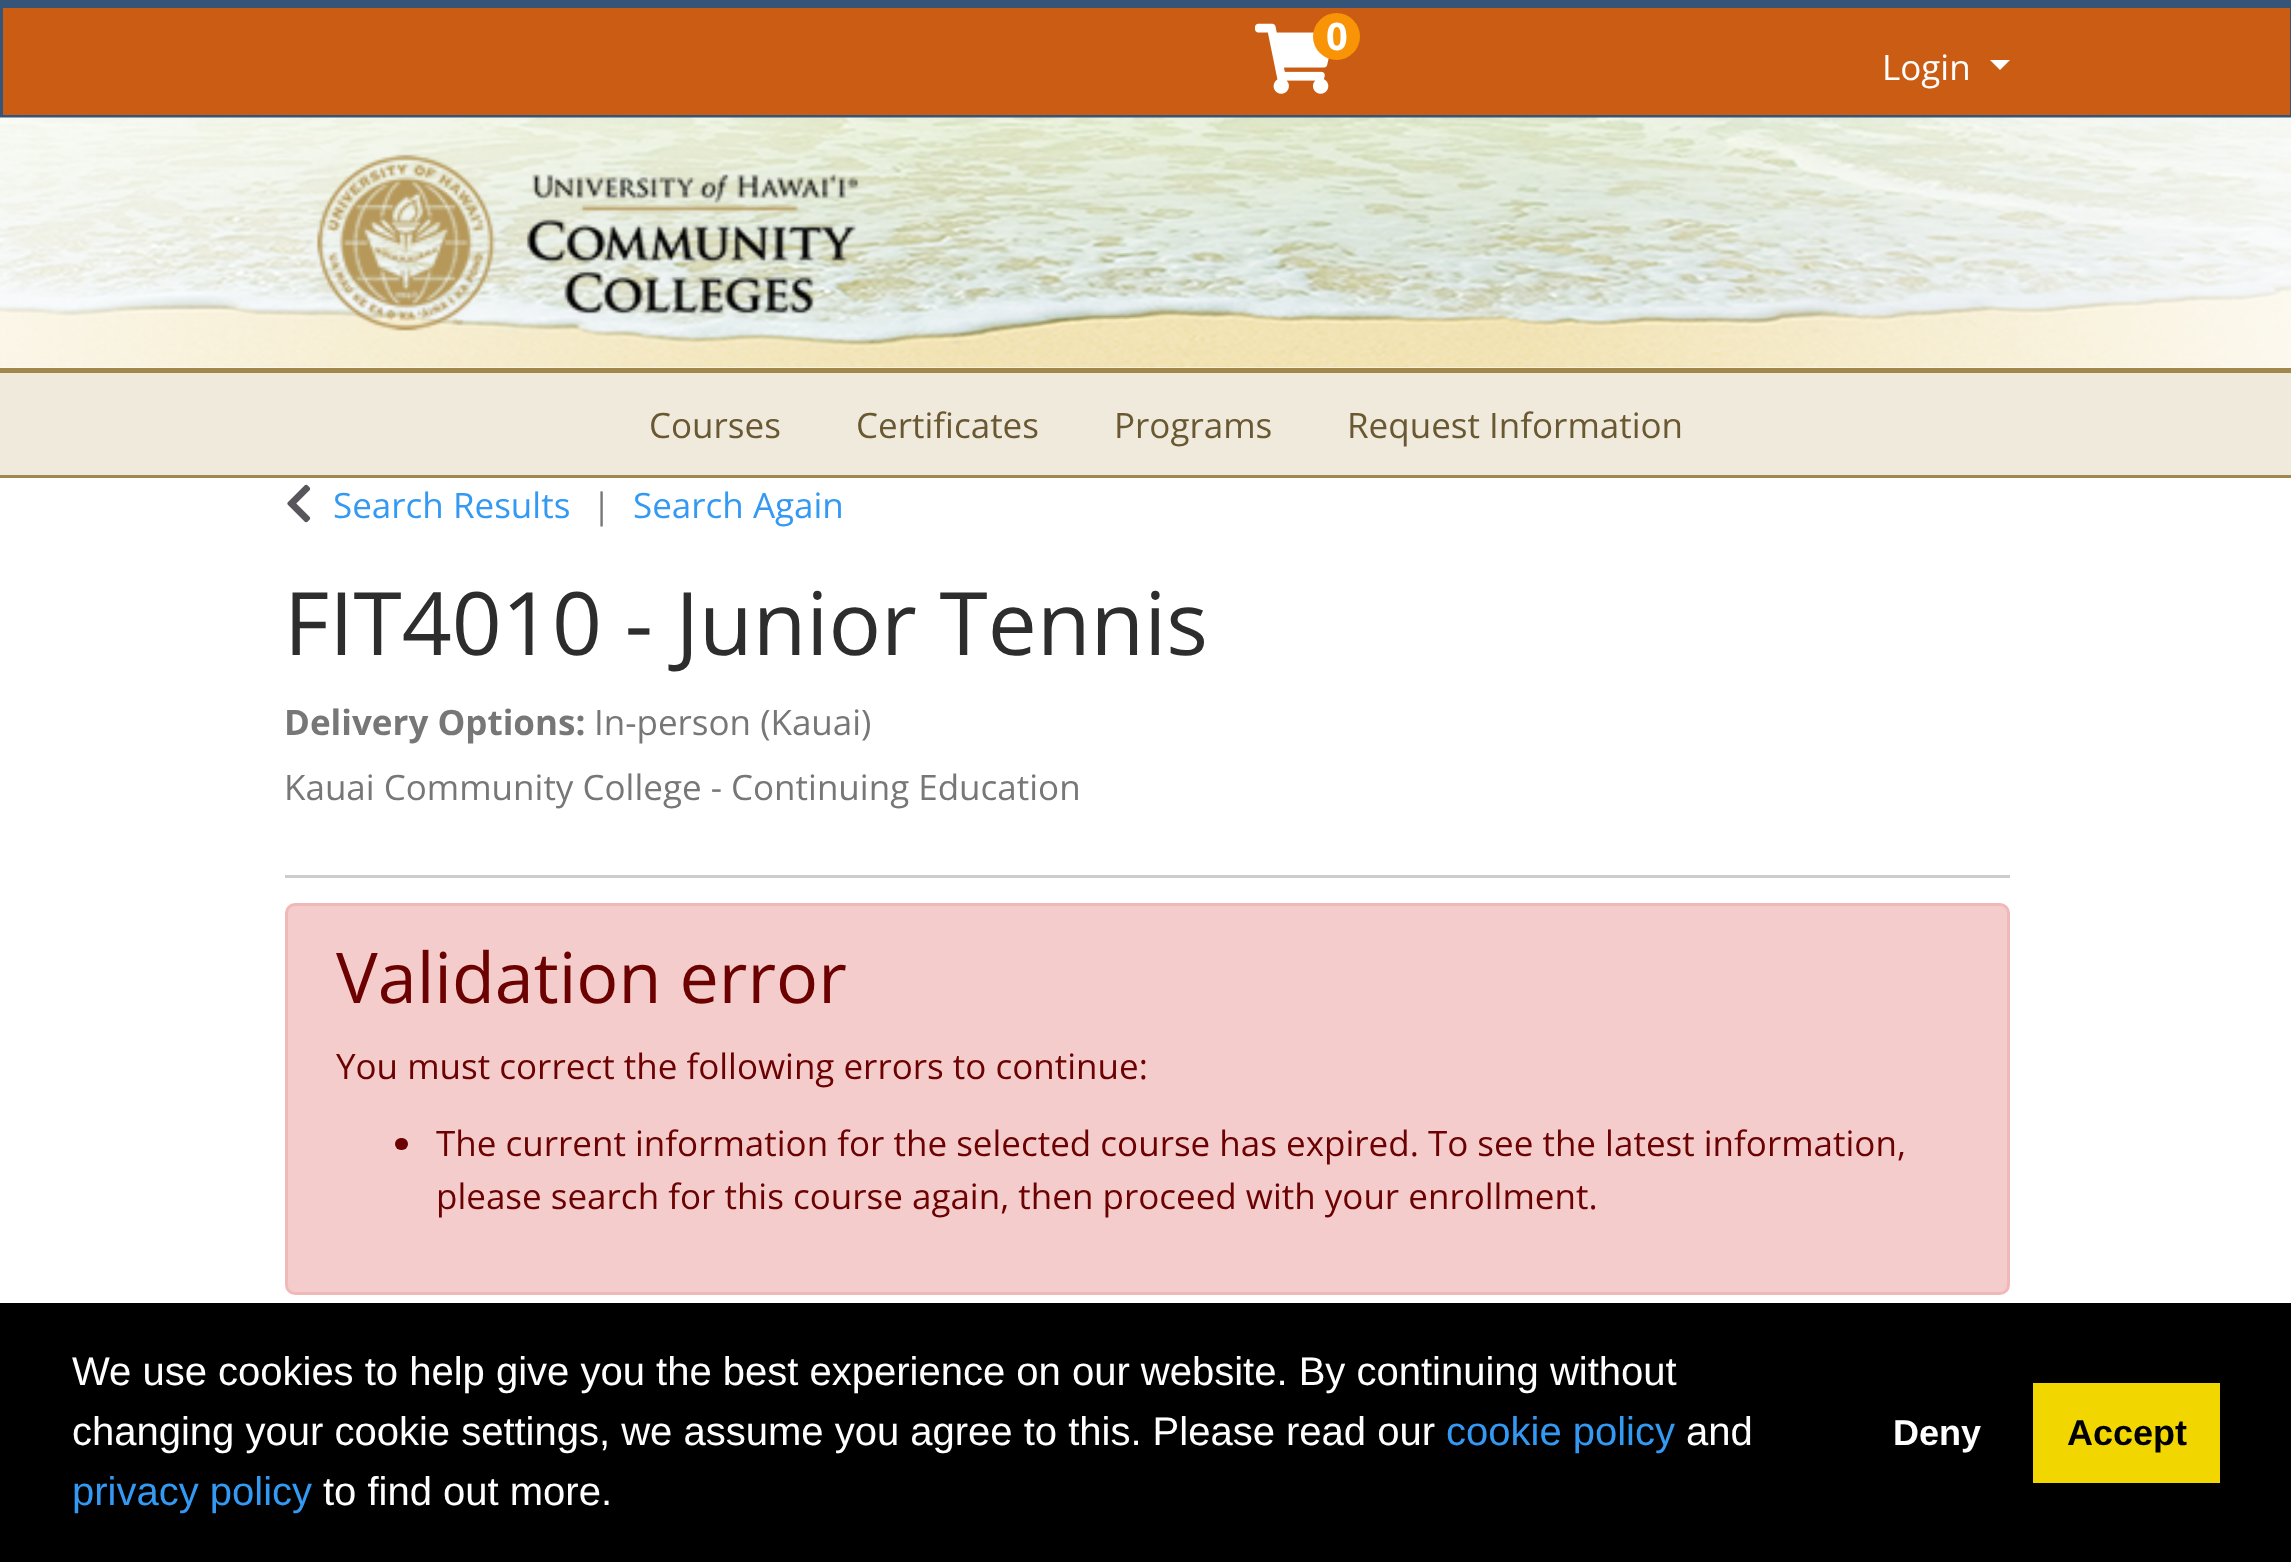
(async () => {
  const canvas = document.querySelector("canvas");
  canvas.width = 2291;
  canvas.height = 1562;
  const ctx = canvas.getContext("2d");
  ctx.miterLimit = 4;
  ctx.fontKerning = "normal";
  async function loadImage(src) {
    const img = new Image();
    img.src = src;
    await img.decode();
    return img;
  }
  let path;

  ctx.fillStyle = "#ffffff";
  ctx.fillRect(0, 0, 2291, 1562);
  ctx.fillStyle = "#345578";
  ctx.fillRect(0, 0, 2291, 5);
  ctx.fillStyle = "#ca5c13";
  ctx.beginPath();
  ctx.rect(1.5, 6.5, 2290, 110);
  ctx.fill();
  ctx.strokeStyle = "#345578";
  ctx.lineWidth = 3;
  ctx.stroke();
  ctx.drawImage(await loadImage("img/1.png"), 1255, 23, 74, 71);
  ctx.fillStyle = "#f89406";
  ctx.beginPath();
  ctx.arc(1336.5, 36.5, 23.5, 0, Math.PI * 2);
  ctx.fill();
  ctx.fillStyle = "#ffffff";
  path = new Path2D("M1990 60H2010L2000 70Z");
  ctx.fill(path);
  ctx.drawImage(await loadImage("img/2.png"), 0, 117, 2291, 251);
  ctx.drawImage(await loadImage("img/3.png"), 316, 154, 543, 177);
  for (const [x, y, w, h, color] of [
    [0, 373, 2291, 102, "#efeadc"],
    [0, 368, 2291, 5, "#a0874b"],
    [0, 475, 2291, 3, "#a0874b"],
  ]) {
    ctx.fillStyle = color;
    ctx.fillRect(x, y, w, h);
  }
  ctx.drawImage(await loadImage("img/4.png"), 287, 484, 24, 39);
  ctx.fillStyle = "#cccccc";
  ctx.fillRect(285, 875, 1725, 3);
  ctx.fillStyle = "#f5cccc";
  ctx.beginPath();
  ctx.roundRect(286.5, 904.5, 1722, 389, 8.5);
  ctx.fill();
  ctx.strokeStyle = "#f1b8b8";
  ctx.stroke();
  ctx.fillStyle = "#6b0100";
  ctx.beginPath();
  ctx.roundRect(395, 1138, 13, 12, 6);
  ctx.fill();
  ctx.fillStyle = "#000000";
  ctx.fillRect(0, 1303, 2291, 259);
  ctx.fillStyle = "#f1d600";
  ctx.fillRect(2033, 1383, 187, 100);
  ctx.font = "bold 38px Open Sans";
  ctx.fillStyle = "#ffffff";
  ctx.fillText("0", 1326, 50);
  ctx.font = "35px Open Sans";
  ctx.fillText("Login", 1882, 80);
  ctx.fillStyle = "#695832";
  for (const [text, x, y] of [
    ["Courses", 649, 438],
    ["Certificates", 856, 438],
    ["Programs", 1114, 438],
    ["Request Information", 1347, 438],
  ]) {
    ctx.fillText(text, x, y);
  }
  ctx.fillStyle = "#3399f3";
  ctx.fillText("Search Results", 333, 518);
  ctx.fillStyle = "#777777";
  ctx.fillText("|", 592, 518);
  ctx.fillStyle = "#3399f3";
  ctx.fillText("Search Again", 633, 518);
  ctx.font = "87.5px Open Sans";
  ctx.fillStyle = "#2d2d2d";
  ctx.fillText("FIT4010 - Junior Tennis", 284, 655);
  ctx.font = "bold 35px Open Sans";
  ctx.fillStyle = "#777777";
  ctx.fillText("Delivery Options:", 284, 735);
  ctx.font = "35px Open Sans";
  ctx.fillText("In-person (Kauai)", 594, 735);
  ctx.fillText("Kauai Community College - Continuing Education", 284, 800);
  ctx.font = "70px Open Sans";
  ctx.fillStyle = "#6b0100";
  ctx.fillText("Validation error", 336, 1003);
  ctx.font = "35px Open Sans";
  for (const [text, x, y] of [
    ["You must correct the following errors to continue:", 336, 1079],
    ["The current information for the selected course has expired. To see the latest information,", 436, 1156],
    ["please search for this course again, then proceed with your enrollment.", 436, 1209],
  ]) {
    ctx.fillText(text, x, y);
  }
  ctx.font = "40px Liberation Sans";
  ctx.fillStyle = "#ffffff";
  ctx.fillText("We use cookies to help give you the best experience on our website. By continuing without", 72, 1385);
  ctx.fillText("changing your cookie settings, we assume you agree to this. Please read our", 72, 1445);
  ctx.fillStyle = "#3399f3";
  ctx.fillText("cookie policy", 1446, 1445);
  ctx.fillStyle = "#ffffff";
  ctx.fillText("and", 1686, 1445);
  ctx.fillStyle = "#3399f3";
  ctx.fillText("privacy policy", 72, 1505);
  ctx.fillStyle = "#ffffff";
  ctx.fillText("to find out more.", 323, 1505);
  ctx.font = "bold 36px Liberation Sans";
  ctx.fillText("Deny", 1893, 1445);
  ctx.fillStyle = "#000000";
  ctx.fillText("Accept", 2067, 1445);
})();
